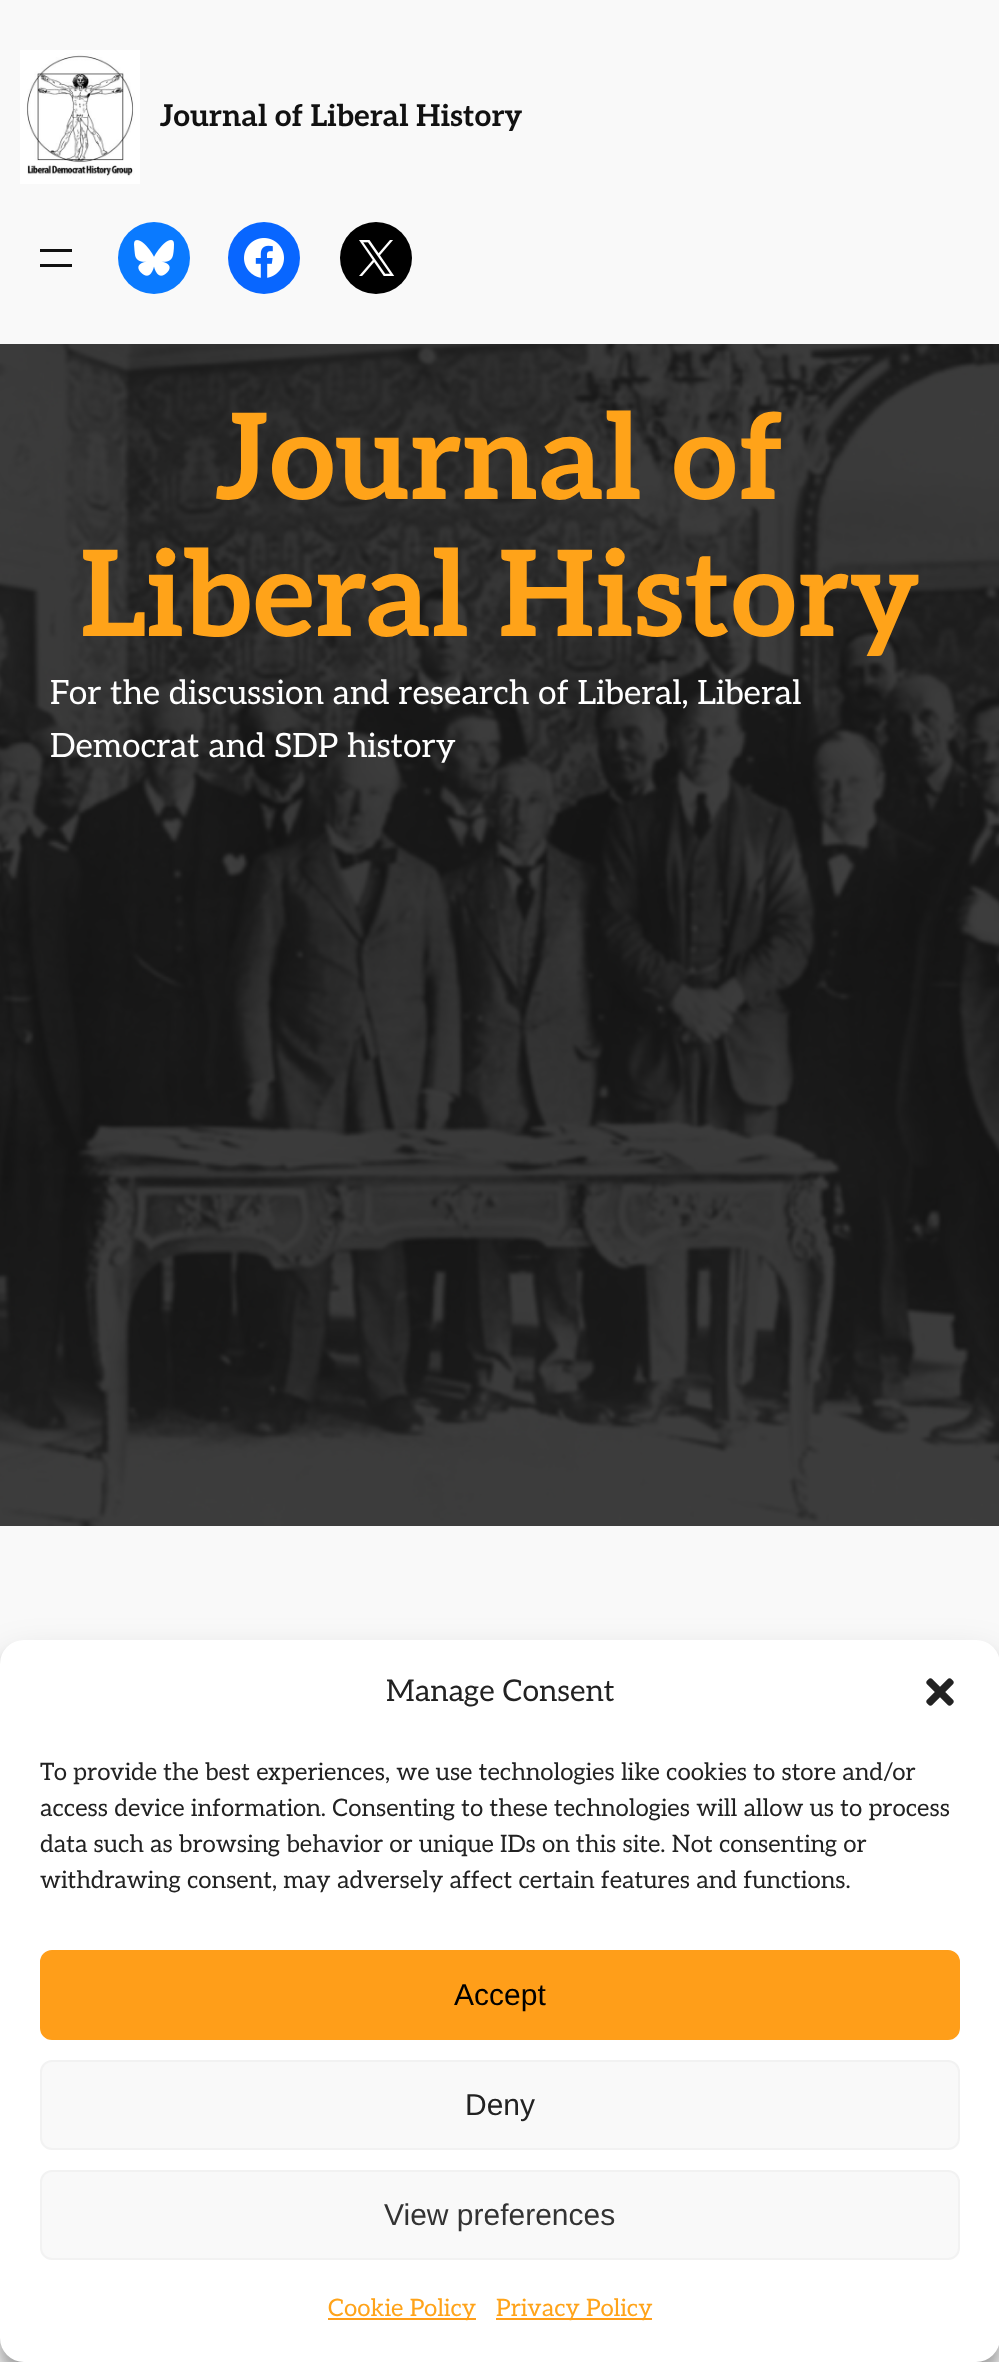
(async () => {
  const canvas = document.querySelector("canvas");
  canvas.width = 999;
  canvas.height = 2362;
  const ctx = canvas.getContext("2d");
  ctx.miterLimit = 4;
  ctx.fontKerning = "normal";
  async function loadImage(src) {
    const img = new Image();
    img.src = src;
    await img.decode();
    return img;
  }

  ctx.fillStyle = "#f9f9f9";
  ctx.fillRect(0, 0, 999, 2362);
  ctx.drawImage(await loadImage("img/1.png"), 20, 50, 120, 134);
  ctx.fillStyle = "#111111";
  ctx.fillRect(40, 249, 32, 3);
  ctx.fillRect(40, 264, 32, 3);
  ctx.fillStyle = "#0a7aff";
  ctx.beginPath();
  ctx.arc(154, 258, 36, 0, Math.PI * 2);
  ctx.fill();
  ctx.drawImage(await loadImage("img/2.png"), 134, 240, 40, 36);
  ctx.fillStyle = "#0866ff";
  ctx.beginPath();
  ctx.arc(264, 258, 36, 0, Math.PI * 2);
  ctx.fill();
  ctx.drawImage(await loadImage("img/3.png"), 244, 238, 40, 40);
  ctx.fillStyle = "#000000";
  ctx.beginPath();
  ctx.arc(376, 258, 36, 0, Math.PI * 2);
  ctx.fill();
  ctx.drawImage(await loadImage("img/4.png"), 359, 240, 36, 36);
  ctx.drawImage(await loadImage("img/5.png"), 0, 344, 999, 1182);
  ctx.fillStyle = "rgba(0, 0, 0, 0.23)";
  ctx.filter = "blur(6px)";
  ctx.beginPath();
  ctx.roundRect(0, 1652, 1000, 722, 24);
  ctx.fill();
  ctx.filter = "none";
  ctx.fillStyle = "rgba(0, 0, 0, 0.19)";
  ctx.filter = "blur(20px)";
  ctx.beginPath();
  ctx.roundRect(0, 1660, 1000, 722, 24);
  ctx.fill();
  ctx.filter = "none";
  ctx.fillStyle = "#ffffff";
  ctx.beginPath();
  ctx.roundRect(0, 1640, 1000, 722, 24);
  ctx.fill();
  ctx.drawImage(await loadImage("img/6.png"), 926, 1678, 28, 28);
  ctx.fillStyle = "#ff9e19";
  ctx.beginPath();
  ctx.roundRect(41, 1951, 918, 88, 11);
  ctx.fill();
  ctx.strokeStyle = "#ff9e19";
  ctx.lineWidth = 2;
  ctx.stroke();
  ctx.fillStyle = "#f9f9f9";
  ctx.beginPath();
  ctx.roundRect(41, 2061, 918, 88, 11);
  ctx.fill();
  ctx.strokeStyle = "#f2f2f2";
  ctx.stroke();
  ctx.beginPath();
  ctx.roundRect(41, 2171, 918, 88, 11);
  ctx.fill();
  ctx.stroke();
  ctx.fillStyle = "#ff9e19";
  ctx.fillRect(328, 2318, 148, 2);
  ctx.fillRect(496, 2318, 156, 2);
  ctx.font = "bold 30px Aleo";
  ctx.fillStyle = "#111111";
  ctx.fillText("Journal of Liberal History", 160, 126);
  ctx.font = "bold 119px Aleo";
  ctx.fillStyle = "#ffa319";
  ctx.fillText("Journal of", 216, 499);
  ctx.fillText("Liberal History", 80, 636);
  ctx.font = "33.6px Aleo";
  ctx.fillStyle = "#ffffff";
  ctx.fillText("For the discussion and research of Liberal, Liberal", 50, 704);
  ctx.fillText("Democrat and SDP history", 50, 757);
  ctx.font = "30px Aleo";
  ctx.fillStyle = "#222222";
  ctx.fillText("Manage Consent", 386, 1701);
  ctx.font = "24px Aleo";
  for (const [text, x, y] of [
    ["To provide the best experiences, we use technologies like cookies to store and/or", 40, 1780],
    ["access device information. Consenting to these technologies will allow us to process", 40, 1816],
    ["data such as browsing behavior or unique IDs on this site. Not consenting or", 40, 1852],
    ["withdrawing consent, may adversely affect certain features and functions.", 40, 1888],
  ]) {
    ctx.fillText(text, x, y);
  }
  ctx.font = "30px Liberation Sans";
  ctx.fillStyle = "#000000";
  ctx.fillText("Accept", 454, 2005);
  ctx.fillStyle = "#222222";
  ctx.fillText("Deny", 465, 2115);
  ctx.fillStyle = "#333333";
  ctx.fillText("View preferences", 384, 2225);
  ctx.font = "24px Aleo";
  ctx.fillStyle = "#ffa319";
  ctx.fillText("Cookie Policy", 328, 2316);
  ctx.fillText("Privacy Policy", 496, 2316);
})();
